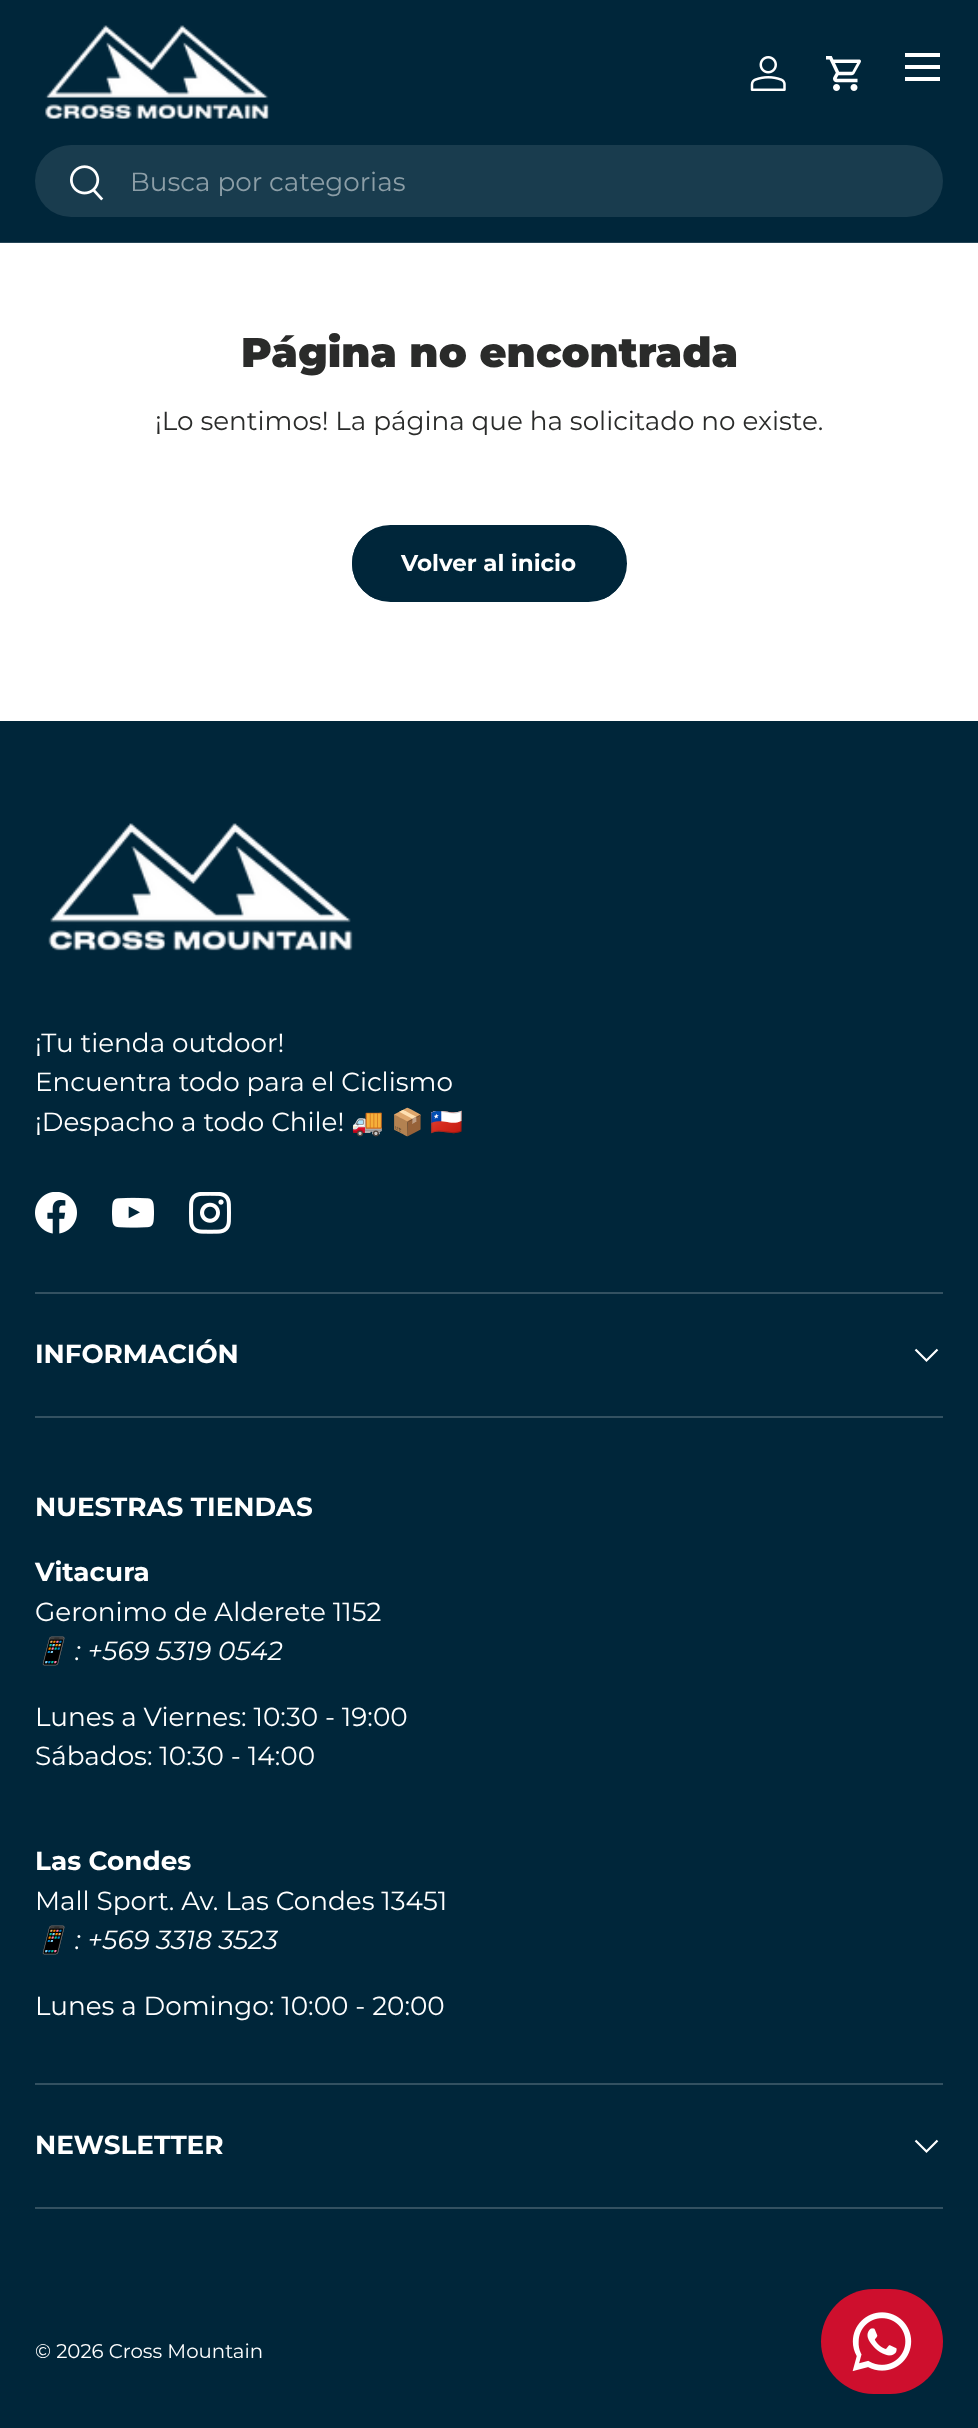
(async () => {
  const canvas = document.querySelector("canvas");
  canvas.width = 978;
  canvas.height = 2428;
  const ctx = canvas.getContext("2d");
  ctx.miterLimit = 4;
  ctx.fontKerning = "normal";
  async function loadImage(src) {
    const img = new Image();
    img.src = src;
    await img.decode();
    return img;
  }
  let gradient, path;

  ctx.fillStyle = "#ffffff";
  ctx.fillRect(0, 0, 978, 2428);
  ctx.fillStyle = "#00263a";
  ctx.fillRect(0, 0, 978, 243);
  ctx.fillStyle = "rgba(255, 255, 255, 0.15)";
  ctx.fillRect(0, 242, 978, 1);
  ctx.drawImage(await loadImage("img/1.png"), 45, 25, 225, 95);
  ctx.drawImage(await loadImage("img/2.png"), 750, 56, 36, 35);
  ctx.drawImage(await loadImage("img/3.png"), 826, 56, 35, 35);
  for (const [x, y, w, h, color] of [
    [905, 53, 35, 4, "#ffffff"],
    [905, 77, 35, 4, "#ffffff"],
    [905, 65, 35, 4, "#ffffff"],
  ]) {
    ctx.fillStyle = color;
    ctx.fillRect(x, y, w, h);
  }
  ctx.fillStyle = "#193c4e";
  ctx.beginPath();
  ctx.roundRect(35, 145, 908, 72, 36);
  ctx.fill();
  ctx.drawImage(await loadImage("img/4.png"), 70, 165, 34, 36);
  ctx.save();
  ctx.beginPath();
  ctx.roundRect(352, 525, 275, 77, 38.5);
  ctx.clip();
  gradient = ctx.createLinearGradient(-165, 467, 608, 660);
  gradient.addColorStop(0.6, "#2b5063");
  gradient.addColorStop(0.6, "#00263a");
  gradient.addColorStop(1, "#00263a");
  ctx.fillStyle = gradient;
  ctx.fillRect(352, 529, 271, 70);
  ctx.restore();
  ctx.beginPath();
  ctx.roundRect(354, 527, 271, 73, 36.5);
  ctx.strokeStyle = "#00263a";
  ctx.lineWidth = 4;
  ctx.stroke();
  ctx.fillStyle = "#00263a";
  ctx.fillRect(0, 721, 978, 1707);
  ctx.drawImage(await loadImage("img/5.png"), 48, 823, 305, 128);
  ctx.drawImage(await loadImage("img/6.png"), 35, 1192, 42, 42);
  ctx.drawImage(await loadImage("img/7.png"), 112, 1197, 42, 31);
  ctx.drawImage(await loadImage("img/8.png"), 189, 1192, 42, 42);
  ctx.fillStyle = "#335161";
  ctx.fillRect(35, 1292, 908, 2);
  ctx.fillRect(35, 1416, 908, 2);
  path = new Path2D("M937.5 1349.5L926.5 1360.5L915.5 1349.5");
  ctx.strokeStyle = "#ffffff";
  ctx.lineWidth = 2.2;
  ctx.stroke(path);
  ctx.fillRect(35, 2083, 908, 2);
  ctx.fillRect(35, 2207, 908, 2);
  path = new Path2D("M937.5 2140.5L926.5 2151.5L915.5 2140.5");
  ctx.stroke(path);
  ctx.fillStyle = "#ce0f2d";
  ctx.beginPath();
  ctx.roundRect(821, 2289, 122, 105, 52.5);
  ctx.fill();
  ctx.drawImage(await loadImage("img/9.png"), 852, 2312, 60, 60);
  ctx.font = "100 26.25px Montserrat";
  ctx.fillStyle = "#8c9ea7";
  ctx.fillText("Busca por categorias", 130, 191);
  ctx.font = "900 41.5px Montserrat";
  ctx.fillStyle = "#2a2b2a";
  ctx.fillText("Página no encontrada", 241, 367);
  ctx.font = "100 26.25px Montserrat";
  ctx.fillText("¡Lo sentimos! La página que ha solicitado no existe.", 155, 430);
  ctx.font = "bold 23px Montserrat";
  ctx.fillStyle = "#ffffff";
  ctx.fillText("Volver al inicio", 401, 571);
  ctx.font = "100 26.25px Montserrat";
  for (const [text, x, y] of [
    ["¡Tu tienda outdoor!", 35, 1052],
    ["Encuentra todo para el Ciclismo", 35, 1091],
    ["¡Despacho a todo Chile!", 35, 1131],
  ]) {
    ctx.fillText(text, x, y);
  }
  ctx.font = "26.25px Noto Color Emoji";
  for (const [text, x, y] of [
    ["🚚", 351, 1131],
    ["📦", 391, 1131],
    ["🇨🇱", 430, 1131],
  ]) {
    ctx.fillText(text, x, y);
  }
  ctx.font = "bold 26.25px Montserrat";
  for (const [text, x, y] of [
    ["INFORMACIÓN", 35, 1363],
    ["NUESTRAS TIENDAS", 35, 1516],
    ["Vitacura", 35, 1581],
  ]) {
    ctx.fillText(text, x, y);
  }
  ctx.font = "100 26.25px Montserrat";
  ctx.fillText("Geronimo de Alderete 1152", 35, 1621);
  ctx.font = "italic 26.25px Noto Color Emoji";
  ctx.fillText("📱", 35, 1660);
  ctx.font = "italic 26.25px Montserrat";
  ctx.fillText(": +569 5319 0542", 75, 1660);
  ctx.font = "100 26.25px Montserrat";
  ctx.fillText("Lunes a Viernes: 10:30 - 19:00", 35, 1726);
  ctx.fillText("Sábados: 10:30 - 14:00", 35, 1765);
  ctx.font = "bold 26.25px Montserrat";
  ctx.fillText("Las Condes", 35, 1870);
  ctx.font = "100 26.25px Montserrat";
  ctx.fillText("Mall Sport. Av. Las Condes 13451", 35, 1910);
  ctx.font = "italic 26.25px Noto Color Emoji";
  ctx.fillText("📱", 35, 1949);
  ctx.font = "italic 26.25px Montserrat";
  ctx.fillText(": +569 3318 3523", 75, 1949);
  ctx.font = "100 26.25px Montserrat";
  ctx.fillText("Lunes a Domingo: 10:00 - 20:00", 35, 2015);
  ctx.font = "bold 26.25px Montserrat";
  ctx.fillText("NEWSLETTER", 35, 2154);
  ctx.font = "100 19.75px Montserrat";
  ctx.fillText("© 2026 Cross Mountain", 35, 2358);
})();
